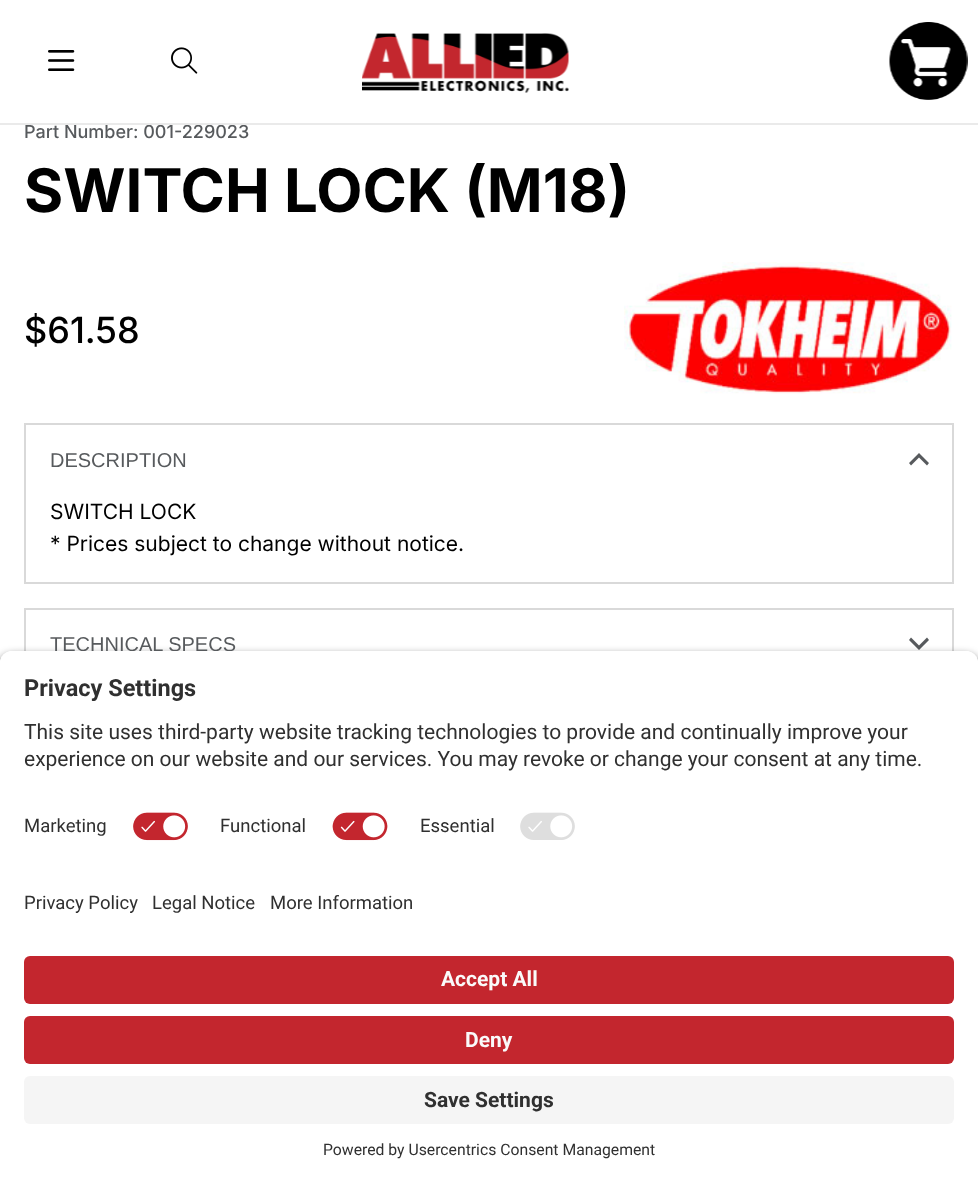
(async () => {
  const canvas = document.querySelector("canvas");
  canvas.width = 978;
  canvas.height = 1183;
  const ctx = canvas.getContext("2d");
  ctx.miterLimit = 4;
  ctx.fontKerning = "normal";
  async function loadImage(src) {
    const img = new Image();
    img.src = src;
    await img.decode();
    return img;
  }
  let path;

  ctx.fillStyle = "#ffffff";
  ctx.fillRect(0, 0, 978, 1183);
  ctx.drawImage(await loadImage("img/1.png"), 48, 50, 27, 21);
  ctx.drawImage(await loadImage("img/2.png"), 171, 47, 27, 27);
  ctx.drawImage(await loadImage("img/3.png"), 362, 33, 207, 60);
  ctx.drawImage(await loadImage("img/4.png"), 889, 22, 79, 78);
  ctx.drawImage(await loadImage("img/5.png"), 624, 262, 328, 132);
  ctx.strokeStyle = "#d9d9d9";
  ctx.lineWidth = 2;
  ctx.strokeRect(25, 424, 928, 159);
  ctx.fillStyle = "#575a5d";
  path = new Path2D("M927 465.5L929 463L919 453L909 463L911 465.5L919 457.5Z");
  ctx.fill(path);
  ctx.strokeRect(25, 609, 928, 71);
  path = new Path2D("M911 637.5L909 640L919 650L929 640L927 637.5L919 645.5Z");
  ctx.fill(path);
  ctx.fillStyle = "rgba(0, 0, 0, 0.8)";
  ctx.filter = "blur(5px)";
  ctx.beginPath();
  ctx.roundRect(0, 656, 978, 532, 12);
  ctx.fill();
  ctx.filter = "none";
  ctx.fillStyle = "#ffffff";
  ctx.fillRect(0, 869, 978, 314);
  ctx.fillStyle = "#c3262e";
  ctx.beginPath();
  ctx.roundRect(24, 956, 930, 48, 6);
  ctx.fill();
  ctx.beginPath();
  ctx.roundRect(24, 1016, 930, 48, 6);
  ctx.fill();
  ctx.fillStyle = "#f5f5f5";
  ctx.beginPath();
  ctx.roundRect(24, 1076, 930, 48, 6);
  ctx.fill();
  ctx.font = "500 18px Inter";
  ctx.fillStyle = "#575a5d";
  ctx.fillText("Part Number: 001-229023", 24, 138);
  ctx.fillStyle = "#eaeaea";
  ctx.fillRect(0, 123, 978, 2);
  ctx.font = "bold 60px Inter";
  ctx.fillStyle = "#000000";
  ctx.fillText("SWITCH LOCK (M18)", 24, 212);
  ctx.font = "500 36px Inter";
  ctx.fillText("$61.58", 24, 343);
  ctx.font = "20px Liberation Sans";
  ctx.fillStyle = "#575a5d";
  ctx.fillText("DESCRIPTION", 50, 467);
  ctx.font = "21px Inter";
  ctx.fillStyle = "#000000";
  ctx.fillText("SWITCH LOCK", 50, 519);
  ctx.fillText("* Prices subject to change without notice.", 50, 551);
  ctx.font = "20px Liberation Sans";
  ctx.fillStyle = "#575a5d";
  ctx.fillText("TECHNICAL SPECS", 50, 651);
  ctx.fillStyle = "#ffffff";
  ctx.beginPath();
  ctx.roundRect(0, 651, 978, 218, [12, 12, 0, 0]);
  ctx.fill();
  ctx.beginPath();
  ctx.roundRect(0, 651, 978, 152, [12, 12, 0, 0]);
  ctx.fill();
  ctx.font = "bold 23.5px Roboto";
  ctx.fillStyle = "#303030";
  ctx.fillText("Privacy Settings", 24, 696);
  ctx.font = "21px Roboto";
  ctx.fillText("This site uses third-party website tracking technologies to provide and continually improve your", 24, 739);
  ctx.fillText("experience on our website and our services. You may revoke or change your consent at any time.", 24, 766);
  ctx.font = "18.5px Roboto";
  ctx.fillText("Marketing", 24, 832);
  ctx.drawImage(await loadImage("img/6.png"), 133, 812, 56, 29);
  ctx.fillText("Functional", 220, 832);
  ctx.drawImage(await loadImage("img/7.png"), 332, 812, 56, 29);
  ctx.fillText("Essential", 420, 832);
  ctx.drawImage(await loadImage("img/8.png"), 520, 812, 55, 28);
  for (const [text, x, y] of [
    ["Privacy Policy", 24, 909],
    ["Legal Notice", 152, 909],
    ["More Information", 270, 909],
  ]) {
    ctx.fillText(text, x, y);
  }
  ctx.font = "bold 21px Roboto";
  ctx.fillStyle = "#fafafa";
  ctx.fillText("Accept All", 441, 986);
  ctx.fillText("Deny", 465, 1047);
  ctx.fillStyle = "#303030";
  ctx.fillText("Save Settings", 424, 1107);
  ctx.font = "15.75px Roboto";
  ctx.fillText("Powered by Usercentrics Consent Management", 323, 1155);
})();
